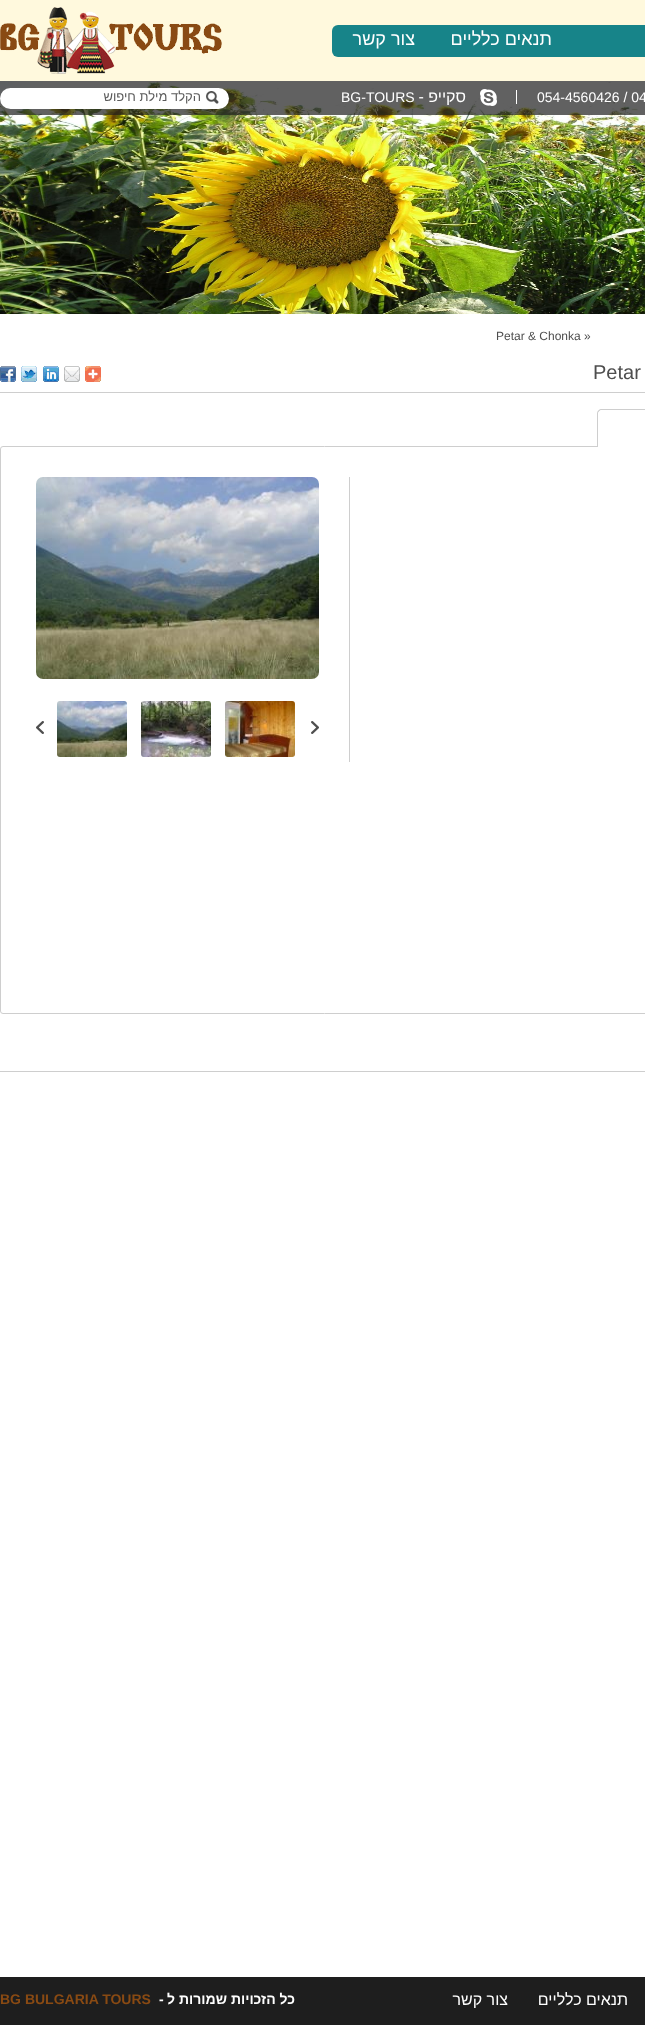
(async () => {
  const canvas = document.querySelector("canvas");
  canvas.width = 645;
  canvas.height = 2025;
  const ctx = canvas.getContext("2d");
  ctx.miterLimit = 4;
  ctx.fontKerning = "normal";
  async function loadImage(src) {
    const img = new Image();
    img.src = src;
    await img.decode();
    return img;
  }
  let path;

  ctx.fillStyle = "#ffffff";
  ctx.fillRect(0, 0, 645, 2025);
  ctx.fillStyle = "#fff9dd";
  ctx.fillRect(0, 0, 645, 81);
  ctx.fillStyle = "#178489";
  ctx.beginPath();
  ctx.roundRect(332, 25, 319, 32, 6);
  ctx.fill();
  ctx.drawImage(await loadImage("img/1.png"), 0, 7, 222, 67);
  ctx.drawImage(await loadImage("img/2.png"), 0, 81, 645, 233);
  ctx.fillStyle = "rgba(30, 30, 30, 0.7)";
  ctx.fillRect(0, 81, 645, 34);
  ctx.fillStyle = "#ffffff";
  ctx.fillRect(516, 90, 1, 14);
  ctx.drawImage(await loadImage("img/3.png"), 480, 89, 17, 17);
  ctx.beginPath();
  ctx.roundRect(0, 88, 229, 21, 10.5);
  ctx.fill();
  ctx.drawImage(await loadImage("img/4.png"), 206, 91, 13, 13);
  ctx.fillStyle = "#cecece";
  ctx.fillRect(0, 392, 645, 1);
  ctx.drawImage(await loadImage("img/5.png"), 85, 366, 16, 16);
  ctx.drawImage(await loadImage("img/6.png"), 64, 366, 16, 16);
  ctx.drawImage(await loadImage("img/7.png"), 43, 366, 16, 16);
  ctx.drawImage(await loadImage("img/8.png"), 21, 366, 16, 16);
  ctx.drawImage(await loadImage("img/9.png"), 0, 366, 16, 16);
  ctx.beginPath();
  ctx.roundRect(0.5, 446.5, 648, 567, 2.5);
  ctx.strokeStyle = "#cecece";
  ctx.stroke();
  path = new Path2D("M602 409H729C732 409 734 411 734 414V447H597V414C597 411 599 409 602 409ZM602 410H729C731 410 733 412 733 414V447H598V414C598 412 600 410 602 410Z");
  ctx.fill(path, "evenodd");
  ctx.fillStyle = "#ffffff";
  path = new Path2D("M602 410H645C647 410 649 412 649 414V447H598V414C598 412 600 410 602 410Z");
  ctx.fill(path);
  ctx.fillStyle = "#cecece";
  ctx.fillRect(349, 477, 1, 285);
  ctx.drawImage(await loadImage("img/10.png"), 36, 477, 283, 202);
  ctx.drawImage(await loadImage("img/11.png"), 311, 721, 8, 13);
  ctx.drawImage(await loadImage("img/12.png"), 225, 701, 70, 56);
  ctx.drawImage(await loadImage("img/13.png"), 141, 701, 70, 56);
  ctx.drawImage(await loadImage("img/14.png"), 57, 701, 70, 56);
  ctx.drawImage(await loadImage("img/15.png"), 36, 721, 8, 13);
  ctx.fillRect(0, 1071, 645, 1);
  ctx.fillStyle = "#1e1e1e";
  ctx.fillRect(0, 1977, 645, 48);
  ctx.direction = "rtl";
  ctx.font = "18px Liberation Sans";
  ctx.fillStyle = "#ffffff";
  ctx.fillText("תנאים כלליים", 552, 45);
  ctx.fillText("צור קשר", 415, 45);
  ctx.direction = "ltr";
  ctx.font = "14px Liberation Sans";
  ctx.fillText("054-4560426 / 04", 537, 102);
  ctx.direction = "rtl";
  ctx.font = "16px Liberation Sans";
  ctx.fillText("סקייפ -", 466, 102);
  ctx.direction = "ltr";
  ctx.font = "14px Liberation Sans";
  ctx.fillText("BG-TOURS", 341, 102);
  ctx.direction = "rtl";
  ctx.font = "13px Liberation Sans";
  ctx.fillStyle = "#5a5a5a";
  ctx.fillText("הקלד מילת חיפוש", 201, 101);
  ctx.direction = "ltr";
  ctx.font = "12px Liberation Sans";
  ctx.fillStyle = "#4e4e4e";
  ctx.fillText("»", 584, 340);
  ctx.fillText("Petar & Chonka", 496, 340);
  ctx.font = "20px Liberation Sans";
  ctx.fillText("Petar", 593, 379);
  ctx.direction = "rtl";
  ctx.font = "16px Liberation Sans";
  ctx.fillStyle = "#ffffff";
  ctx.fillText("תנאים כלליים", 628, 2005);
  ctx.fillText("צור קשר", 508, 2005);
  ctx.font = "bold 14px Liberation Sans";
  ctx.fillText("כל הזכויות שמורות ל", 295, 2004);
  ctx.direction = "ltr";
  ctx.fillText("-", 159, 2004);
  ctx.fillStyle = "#894a13";
  ctx.fillText("BG BULGARIA TOURS", 0, 2004);
})();
